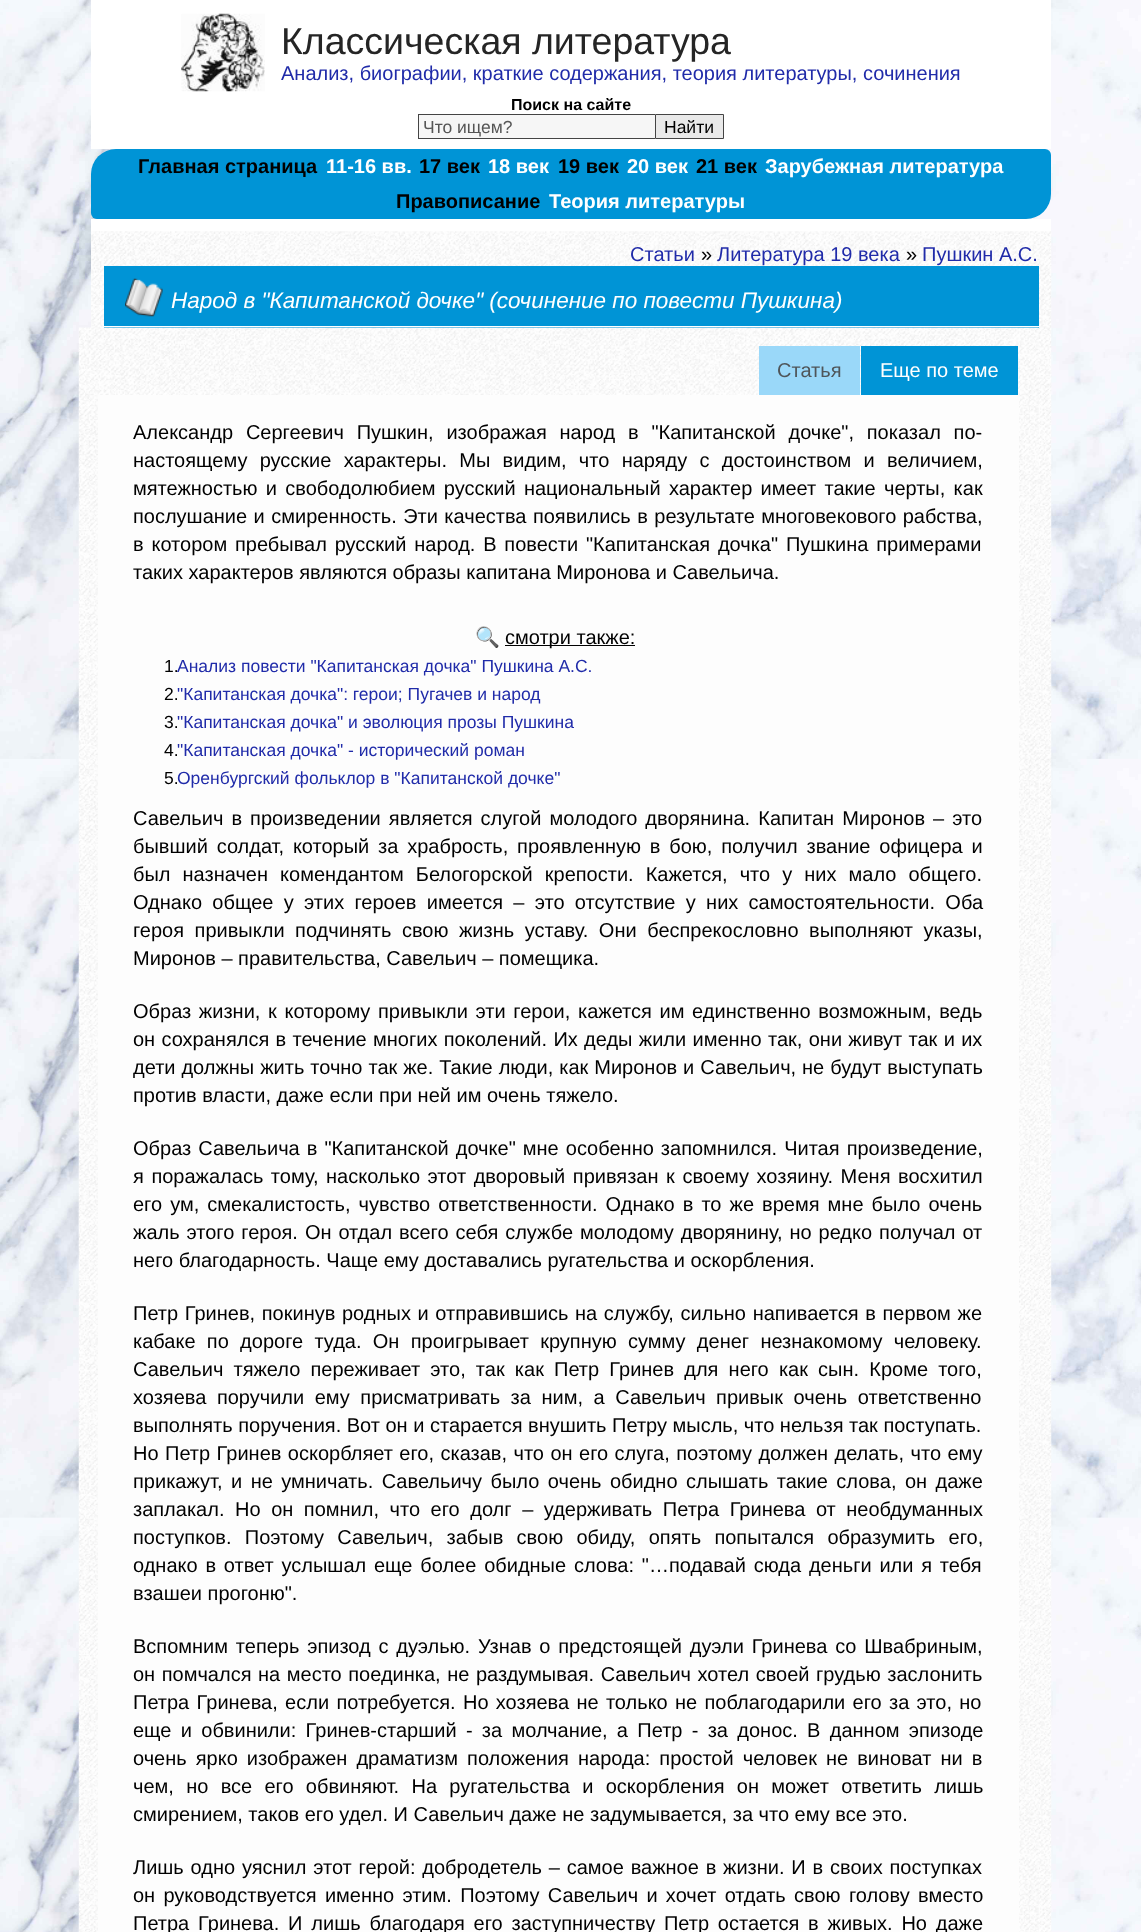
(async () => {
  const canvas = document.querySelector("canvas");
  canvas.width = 1141;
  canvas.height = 1932;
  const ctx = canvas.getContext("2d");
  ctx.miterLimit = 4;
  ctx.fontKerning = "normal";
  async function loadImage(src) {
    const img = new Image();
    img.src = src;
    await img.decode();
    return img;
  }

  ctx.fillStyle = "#ffffff";
  ctx.fillRect(0, 0, 1141, 1932);
  ctx.drawImage(await loadImage("img/1.png"), 0, 0, 1141, 1932);
  ctx.fillRect(91, 0, 960, 149);
  ctx.drawImage(await loadImage("img/2.png"), 181, 13, 84, 79);
  for (const [x, y, w, h, color] of [
    [419, 115, 236, 23, "#f6f6f6"],
    [418, 114, 237, 1, "#444444"],
    [418, 138, 237, 1, "#444444"],
    [418, 114, 1, 25, "#444444"],
  ]) {
    ctx.fillStyle = color;
    ctx.fillRect(x, y, w, h);
  }
  ctx.fillStyle = "#e9e9e9";
  ctx.beginPath();
  ctx.rect(655.5, 114.5, 68, 24);
  ctx.fill();
  ctx.strokeStyle = "#444444";
  ctx.stroke();
  ctx.fillStyle = "#0094d6";
  ctx.beginPath();
  ctx.roundRect(91, 149, 960, 70, [25, 6, 25, 6]);
  ctx.fill();
  ctx.fillStyle = "#ffffff";
  ctx.fillRect(91, 219, 960, 109);
  ctx.drawImage(await loadImage("img/3.png"), 91, 231, 961, 1701);
  ctx.fillStyle = "#0094d6";
  ctx.fillRect(104, 266, 935, 62);
  ctx.fillStyle = "#ffffff";
  ctx.fillRect(104, 326, 935, 1);
  ctx.drawImage(await loadImage("img/4.png"), 125, 278, 38, 39);
  ctx.drawImage(await loadImage("img/5.png"), 78, 327, 961, 1605);
  for (const [x, y, w, h, color] of [
    [759, 346, 101, 49, "#9ad8f9"],
    [861, 346, 157, 49, "#0094d6"],
    [98, 395, 921, 1537, "#fdfdfd"],
    [505, 645, 130, 1, "#000000"],
  ]) {
    ctx.fillStyle = color;
    ctx.fillRect(x, y, w, h);
  }
  ctx.font = "37.5px Liberation Sans";
  ctx.fillStyle = "#252525";
  ctx.fillText("Классическая литература", 281, 54);
  ctx.font = "20px Liberation Sans";
  ctx.fillStyle = "#202ba9";
  ctx.fillText("Анализ, биографии, краткие содержания, теория литературы, сочинения", 281, 80);
  ctx.font = "bold 16px Liberation Sans";
  ctx.fillStyle = "#000000";
  ctx.fillText("Поиск на сайте", 511, 110);
  ctx.font = "17.5px Liberation Sans";
  ctx.fillStyle = "#555555";
  ctx.fillText("Что ищем?", 423, 133);
  ctx.fillStyle = "#000000";
  ctx.fillText("Найти", 664, 133);
  ctx.font = "bold 20px Liberation Sans";
  ctx.fillText("Главная страница", 138, 173);
  ctx.fillStyle = "#ffffff";
  ctx.fillText("11-16 вв.", 326, 173);
  ctx.fillStyle = "#000000";
  ctx.fillText("17 век", 419, 173);
  ctx.fillStyle = "#ffffff";
  ctx.fillText("18 век", 488, 173);
  ctx.fillStyle = "#000000";
  ctx.fillText("19 век", 558, 173);
  ctx.fillStyle = "#ffffff";
  ctx.fillText("20 век", 627, 173);
  ctx.fillStyle = "#000000";
  ctx.fillText("21 век", 696, 173);
  ctx.fillStyle = "#ffffff";
  ctx.fillText("Зарубежная литература", 765, 173);
  ctx.fillStyle = "#000000";
  ctx.fillText("Правописание", 396, 208);
  ctx.fillStyle = "#ffffff";
  ctx.fillText("Теория литературы", 549, 208);
  ctx.font = "20px Liberation Sans";
  ctx.fillStyle = "#202ba9";
  ctx.fillText("Статьи", 630, 261);
  ctx.fillStyle = "#000000";
  ctx.fillText("»", 701, 261);
  ctx.fillStyle = "#202ba9";
  ctx.fillText("Литература 19 века", 717, 261);
  ctx.fillStyle = "#000000";
  ctx.fillText("»", 906, 261);
  ctx.fillStyle = "#202ba9";
  ctx.fillText("Пушкин А.С.", 922, 261);
  ctx.font = "italic 22.5px Liberation Sans";
  ctx.fillStyle = "#ffffff";
  ctx.fillText("Народ в \"Капитанской дочке\" (сочинение по повести Пушкина)", 171, 308);
  ctx.font = "20px Liberation Sans";
  ctx.fillStyle = "#4f5559";
  ctx.fillText("Статья", 777, 377);
  ctx.fillStyle = "#ffffff";
  ctx.fillText("Еще по теме", 880, 377);
  ctx.wordSpacing = "7.25px";
  ctx.fillStyle = "#000000";
  ctx.fillText("Александр Сергеевич Пушкин, изображая народ в \"Капитанской дочке\", показал по-", 133, 439);
  ctx.wordSpacing = "6.75px";
  ctx.fillText("настоящему русские характеры. Мы видим, что наряду с достоинством и величием,", 133, 467);
  ctx.wordSpacing = "2.75px";
  ctx.fillText("мятежностью и свободолюбием русский национальный характер имеет такие черты, как", 133, 495);
  ctx.wordSpacing = "0.9px";
  ctx.fillText("послушание и смиренность. Эти качества появились в результате многовекового рабства,", 133, 523);
  ctx.wordSpacing = "2.25px";
  ctx.fillText("в котором пребывал русский народ. В повести \"Капитанская дочка\" Пушкина примерами", 133, 551);
  ctx.wordSpacing = "0px";
  ctx.fillText("таких характеров являются образы капитана Миронова и Савельича.", 133, 579);
  ctx.font = "20px Noto Color Emoji";
  ctx.fillText("🔍", 475, 644);
  ctx.font = "20px Liberation Sans";
  ctx.fillText("смотри также:", 505, 644);
  ctx.font = "17.5px Liberation Sans";
  ctx.fillText("1.", 164, 672);
  ctx.fillStyle = "#202ba9";
  ctx.fillText("Анализ повести \"Капитанская дочка\" Пушкина А.С.", 177, 672);
  ctx.fillStyle = "#000000";
  ctx.fillText("2.", 164, 700);
  ctx.fillStyle = "#202ba9";
  ctx.fillText("\"Капитанская дочка\": герои; Пугачев и народ", 177, 700);
  ctx.fillStyle = "#000000";
  ctx.fillText("3.", 164, 728);
  ctx.fillStyle = "#202ba9";
  ctx.fillText("\"Капитанская дочка\" и эволюция прозы Пушкина", 177, 728);
  ctx.fillStyle = "#000000";
  ctx.fillText("4.", 164, 756);
  ctx.fillStyle = "#202ba9";
  ctx.fillText("\"Капитанская дочка\" - исторический роман", 177, 756);
  ctx.fillStyle = "#000000";
  ctx.fillText("5.", 164, 784);
  ctx.fillStyle = "#202ba9";
  ctx.fillText("Оренбургский фольклор в \"Капитанской дочке\"", 177, 784);
  ctx.wordSpacing = "2.5px";
  ctx.font = "20px Liberation Sans";
  ctx.fillStyle = "#000000";
  ctx.fillText("Савельич в произведении является слугой молодого дворянина. Капитан Миронов – это", 133, 825);
  ctx.wordSpacing = "3.25px";
  ctx.fillText("бывший солдат, который за храбрость, проявленную в бою, получил звание офицера и", 133, 853);
  ctx.wordSpacing = "6.5px";
  ctx.fillText("был назначен комендантом Белогорской крепости. Кажется, что у них мало общего.", 133, 881);
  ctx.wordSpacing = "4.75px";
  ctx.fillText("Однако общее у этих героев имеется – это отсутствие у них самостоятельности. Оба", 133, 909);
  ctx.wordSpacing = "5px";
  ctx.fillText("героя привыкли подчинять свою жизнь уставу. Они беспрекословно выполняют указы,", 133, 937);
  ctx.wordSpacing = "0px";
  ctx.fillText("Миронов – правительства, Савельич – помещика.", 133, 965);
  ctx.wordSpacing = "2.1px";
  ctx.fillText("Образ жизни, к которому привыкли эти герои, кажется им единственно возможным, ведь", 133, 1018);
  ctx.wordSpacing = "0.75px";
  ctx.fillText("он сохранялся в течение многих поколений. Их деды жили именно так, они живут так и их", 133, 1046);
  ctx.wordSpacing = "0.4px";
  ctx.fillText("дети должны жить точно так же. Такие люди, как Миронов и Савельич, не будут выступать", 133, 1074);
  ctx.wordSpacing = "0px";
  ctx.fillText("против власти, даже если при ней им очень тяжело.", 133, 1102);
  ctx.wordSpacing = "1.5px";
  ctx.fillText("Образ Савельича в \"Капитанской дочке\" мне особенно запомнился. Читая произведение,", 133, 1155);
  ctx.wordSpacing = "2px";
  ctx.fillText("я поражалась тому, насколько этот дворовый привязан к своему хозяину. Меня восхитил", 133, 1183);
  ctx.wordSpacing = "2.5px";
  ctx.fillText("его ум, смекалистость, чувство ответственности. Однако в то же время мне было очень", 133, 1211);
  ctx.wordSpacing = "1.4px";
  ctx.fillText("жаль этого героя. Он отдал всего себя службе молодому дворянину, но редко получал от", 133, 1239);
  ctx.wordSpacing = "0px";
  ctx.fillText("него благодарность. Чаще ему доставались ругательства и оскорбления.", 133, 1267);
  ctx.wordSpacing = "1.1px";
  ctx.fillText("Петр Гринев, покинув родных и отправившись на службу, сильно напивается в первом же", 133, 1320);
  ctx.wordSpacing = "5.75px";
  ctx.fillText("кабаке по дороге туда. Он проигрывает крупную сумму денег незнакомому человеку.", 133, 1348);
  ctx.wordSpacing = "4.6px";
  ctx.fillText("Савельич тяжело переживает это, так как Петр Гринев для него как сын. Кроме того,", 133, 1376);
  ctx.wordSpacing = "5px";
  ctx.fillText("хозяева поручили ему присматривать за ним, а Савельич привык очень ответственно", 133, 1404);
  ctx.wordSpacing = "0px";
  ctx.fillText("выполнять поручения. Вот он и старается внушить Петру мысль, что нельзя так поступать.", 133, 1432);
  ctx.wordSpacing = "0.9px";
  ctx.fillText("Но Петр Гринев оскорбляет его, сказав, что он его слуга, поэтому должен делать, что ему", 133, 1460);
  ctx.wordSpacing = "2.9px";
  ctx.fillText("прикажут, и не умничать. Савельичу было очень обидно слышать такие слова, он даже", 133, 1488);
  ctx.wordSpacing = "5px";
  ctx.fillText("заплакал. Но он помнил, что его долг – удерживать Петра Гринева от необдуманных", 133, 1516);
  ctx.wordSpacing = "7.75px";
  ctx.fillText("поступков. Поэтому Савельич, забыв свою обиду, опять попытался образумить его,", 133, 1544);
  ctx.wordSpacing = "2.25px";
  ctx.fillText("однако в ответ услышал еще более обидные слова: \"…подавай сюда деньги или я тебя", 133, 1572);
  ctx.wordSpacing = "0px";
  ctx.fillText("взашеи прогоню\".", 133, 1600);
  ctx.wordSpacing = "2.25px";
  ctx.fillText("Вспомним теперь эпизод с дуэлью. Узнав о предстоящей дуэли Гринева со Швабриным,", 133, 1653);
  ctx.wordSpacing = "1px";
  ctx.fillText("он помчался на место поединка, не раздумывая. Савельич хотел своей грудью заслонить", 133, 1681);
  ctx.wordSpacing = "1.75px";
  ctx.fillText("Петра Гринева, если потребуется. Но хозяева не только не поблагодарили его за это, но", 133, 1709);
  ctx.wordSpacing = "3.75px";
  ctx.fillText("еще и обвинили: Гринев-старший - за молчание, а Петр - за донос. В данном эпизоде", 133, 1737);
  ctx.wordSpacing = "3.5px";
  ctx.fillText("очень ярко изображен драматизм положения народа: простой человек не виноват ни в", 133, 1765);
  ctx.wordSpacing = "6.75px";
  ctx.fillText("чем, но все его обвиняют. На ругательства и оскорбления он может ответить лишь", 133, 1793);
  ctx.wordSpacing = "0px";
  ctx.fillText("смирением, таков его удел. И Савельич даже не задумывается, за что ему все это.", 133, 1821);
  ctx.wordSpacing = "1.25px";
  ctx.fillText("Лишь одно уяснил этот герой: добродетель – самое важное в жизни. И в своих поступках", 133, 1874);
  ctx.wordSpacing = "2.75px";
  ctx.fillText("он руководствуется именно этим. Поэтому Савельич и хочет отдать свою голову вместо", 133, 1902);
  ctx.wordSpacing = "3.25px";
  ctx.fillText("Петра Гринева. И лишь благодаря его заступничеству Петр остается в живых. Но даже", 133, 1930);
})();
